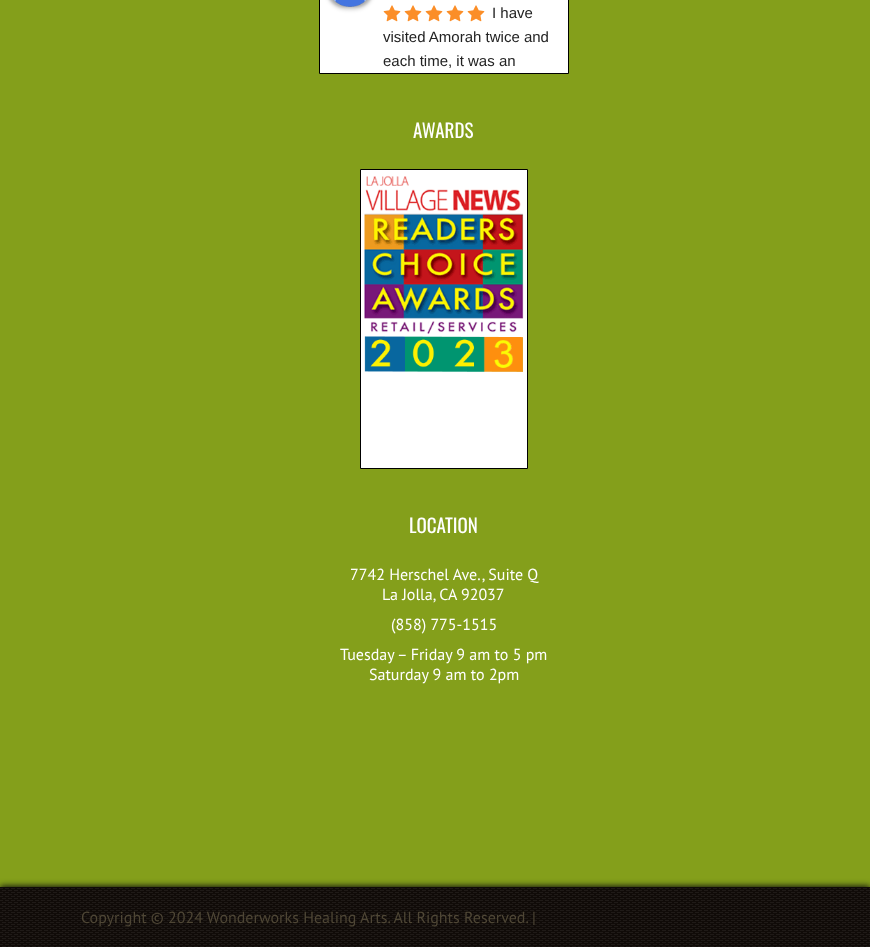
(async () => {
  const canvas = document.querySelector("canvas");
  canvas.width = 870;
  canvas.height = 947;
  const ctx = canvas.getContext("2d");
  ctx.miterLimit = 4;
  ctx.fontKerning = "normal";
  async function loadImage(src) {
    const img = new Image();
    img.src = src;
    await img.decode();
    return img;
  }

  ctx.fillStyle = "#849f1b";
  ctx.fillRect(0, 0, 870, 947);
  ctx.fillStyle = "#ffffff";
  ctx.beginPath();
  ctx.rect(319.5, -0.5, 249, 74);
  ctx.fill();
  ctx.strokeStyle = "#000000";
  ctx.stroke();
  ctx.fillStyle = "rgba(0, 0, 0, 0.24)";
  ctx.filter = "blur(2px)";
  ctx.beginPath();
  ctx.roundRect(327, -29, 46, 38, 23);
  ctx.fill();
  ctx.filter = "none";
  ctx.fillStyle = "rgba(0, 0, 0, 0.12)";
  ctx.filter = "blur(1px)";
  ctx.beginPath();
  ctx.roundRect(327, -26, 46, 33, 23);
  ctx.fill();
  ctx.filter = "none";
  ctx.drawImage(await loadImage("img/1.png"), 333, 0, 34, 7);
  ctx.drawImage(await loadImage("img/2.png"), 383, 5, 18, 17);
  ctx.drawImage(await loadImage("img/2.png"), 404, 5, 18, 17);
  ctx.drawImage(await loadImage("img/2.png"), 425, 5, 18, 17);
  ctx.drawImage(await loadImage("img/2.png"), 446, 5, 18, 17);
  ctx.drawImage(await loadImage("img/2.png"), 467, 5, 18, 17);
  ctx.fillStyle = "#ffffff";
  ctx.beginPath();
  ctx.rect(360.5, 169.5, 167, 299);
  ctx.fill();
  ctx.stroke();
  ctx.drawImage(await loadImage("img/3.png"), 364, 175, 160, 197);
  ctx.fillStyle = "#0c0c0c";
  ctx.filter = "blur(3px)";
  ctx.beginPath();
  ctx.rect(0, 886, 870, 60);
  ctx.fill();
  ctx.filter = "none";
  ctx.drawImage(await loadImage("img/4.png"), 0, 887, 870, 60);
  ctx.font = "15px Liberation Sans";
  ctx.fillStyle = "#222222";
  for (const [text, x, y] of [
    ["I have", 492, 18],
    ["visited Amorah twice and", 383, 42],
    ["each time, it was an", 383, 66],
  ]) {
    ctx.fillText(text, x, y);
  }
  ctx.font = "19px Oswald";
  ctx.fillStyle = "#ffffff";
  ctx.fillText("AWARDS", 413, 138);
  ctx.fillText("LOCATION", 409, 533);
  ctx.font = "16px PT Sans";
  for (const [text, x, y] of [
    ["7742 Herschel Ave., Suite Q", 350, 580],
    ["La Jolla, CA 92037", 382, 600],
    ["(858) 775-1515", 391, 630],
    ["Tuesday – Friday 9 am to 5 pm", 340, 660],
    ["Saturday 9 am to 2pm", 369, 680],
  ]) {
    ctx.fillText(text, x, y);
  }
  ctx.fillStyle = "#4e4635";
  ctx.fillText("Copyright © 2024 Wonderworks Healing Arts. All Rights Reserved. |", 81, 923);
})();
